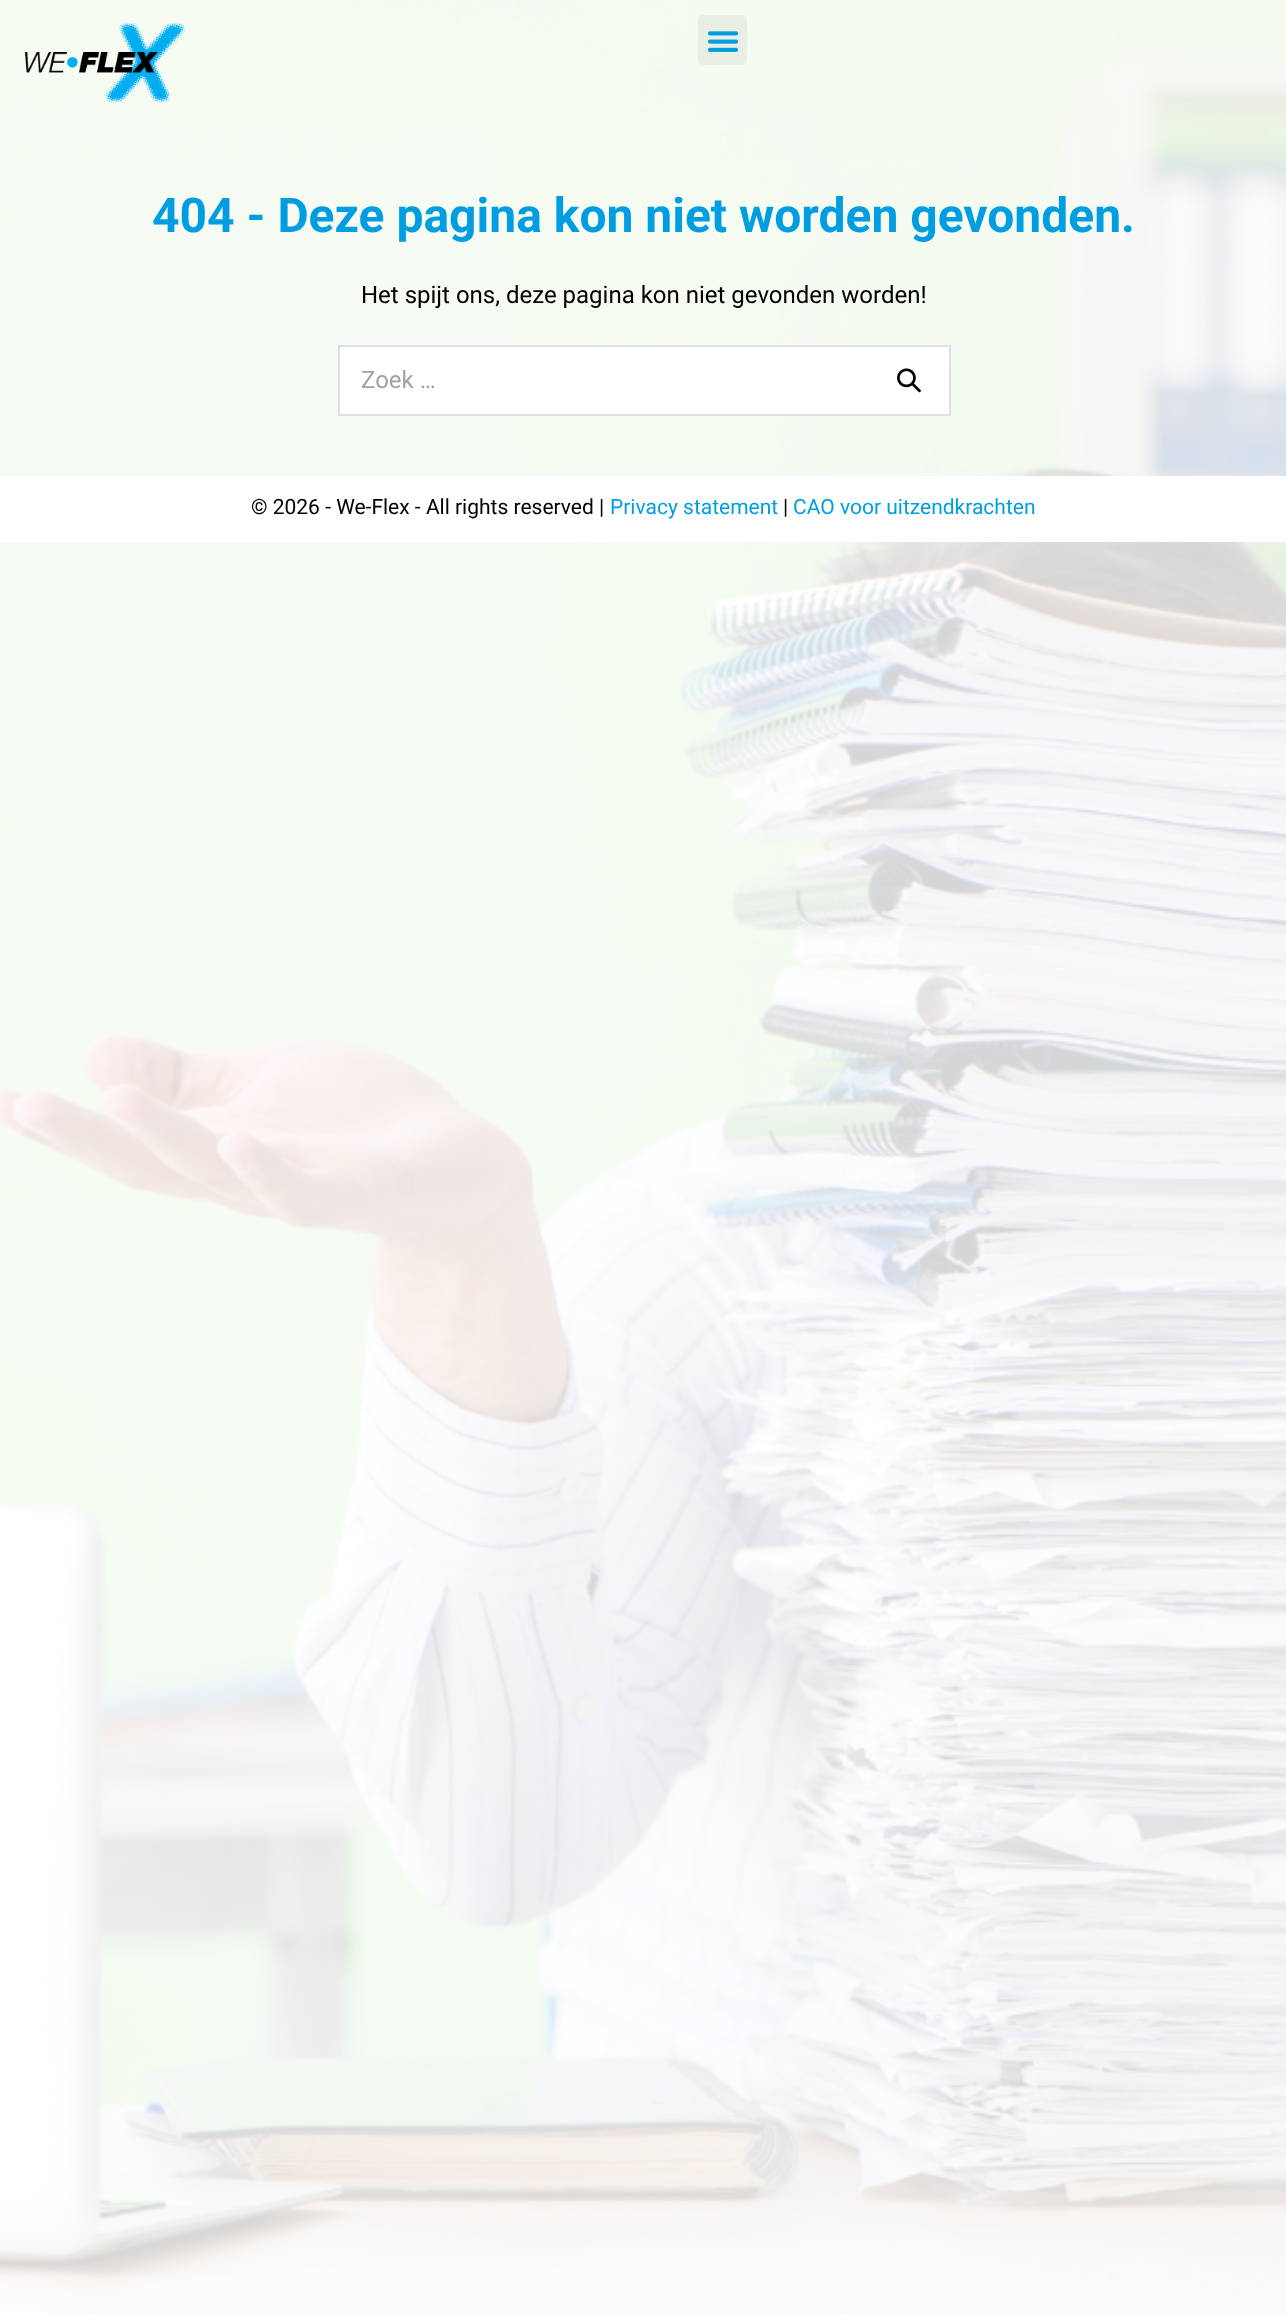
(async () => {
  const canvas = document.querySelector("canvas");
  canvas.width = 1286;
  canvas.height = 2314;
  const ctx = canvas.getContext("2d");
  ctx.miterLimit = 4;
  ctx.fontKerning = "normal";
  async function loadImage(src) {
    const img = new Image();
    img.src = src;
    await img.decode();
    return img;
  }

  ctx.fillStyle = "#ffffff";
  ctx.fillRect(0, 0, 1286, 2314);
  ctx.drawImage(await loadImage("img/1.png"), 0, 0, 1286, 2314);
  ctx.drawImage(await loadImage("img/2.png"), 24, 21, 162, 82);
  ctx.fillStyle = "#e9efe5";
  ctx.beginPath();
  ctx.roundRect(698, 15, 49, 50, 5);
  ctx.fill();
  ctx.drawImage(await loadImage("img/3.png"), 707, 31, 32, 21);
  ctx.fillStyle = "#ffffff";
  ctx.beginPath();
  ctx.rect(339, 346, 611, 69);
  ctx.fill();
  ctx.strokeStyle = "#dedee5";
  ctx.lineWidth = 2;
  ctx.stroke();
  ctx.drawImage(await loadImage("img/4.png"), 897, 368, 24, 25);
  ctx.fillRect(0, 476, 1286, 66);
  ctx.font = "bold 48px Roboto";
  ctx.fillStyle = "#009ee1";
  ctx.fillText("404 - Deze pagina kon niet worden gevonden.", 152, 232);
  ctx.font = "24px Roboto";
  ctx.fillStyle = "#000000";
  ctx.fillText("Het spijt ons, deze pagina kon niet gevonden worden!", 361, 303);
  ctx.save();
  ctx.beginPath();
  ctx.rect(362, 366, 543, 29);
  ctx.clip();
  ctx.fillStyle = "#9fa1a4";
  ctx.fillText("Zoek …", 361, 388);
  ctx.restore();
  ctx.font = "21px Roboto";
  ctx.fillText("© 2026 - We-Flex - All rights reserved |", 251, 514);
  ctx.fillStyle = "#009ee1";
  ctx.fillText("Privacy statement", 610, 514);
  ctx.fillStyle = "#000000";
  ctx.fillText("|", 783, 514);
  ctx.fillStyle = "#009ee1";
  ctx.fillText("CAO voor uitzendkrachten", 793, 514);
})();
